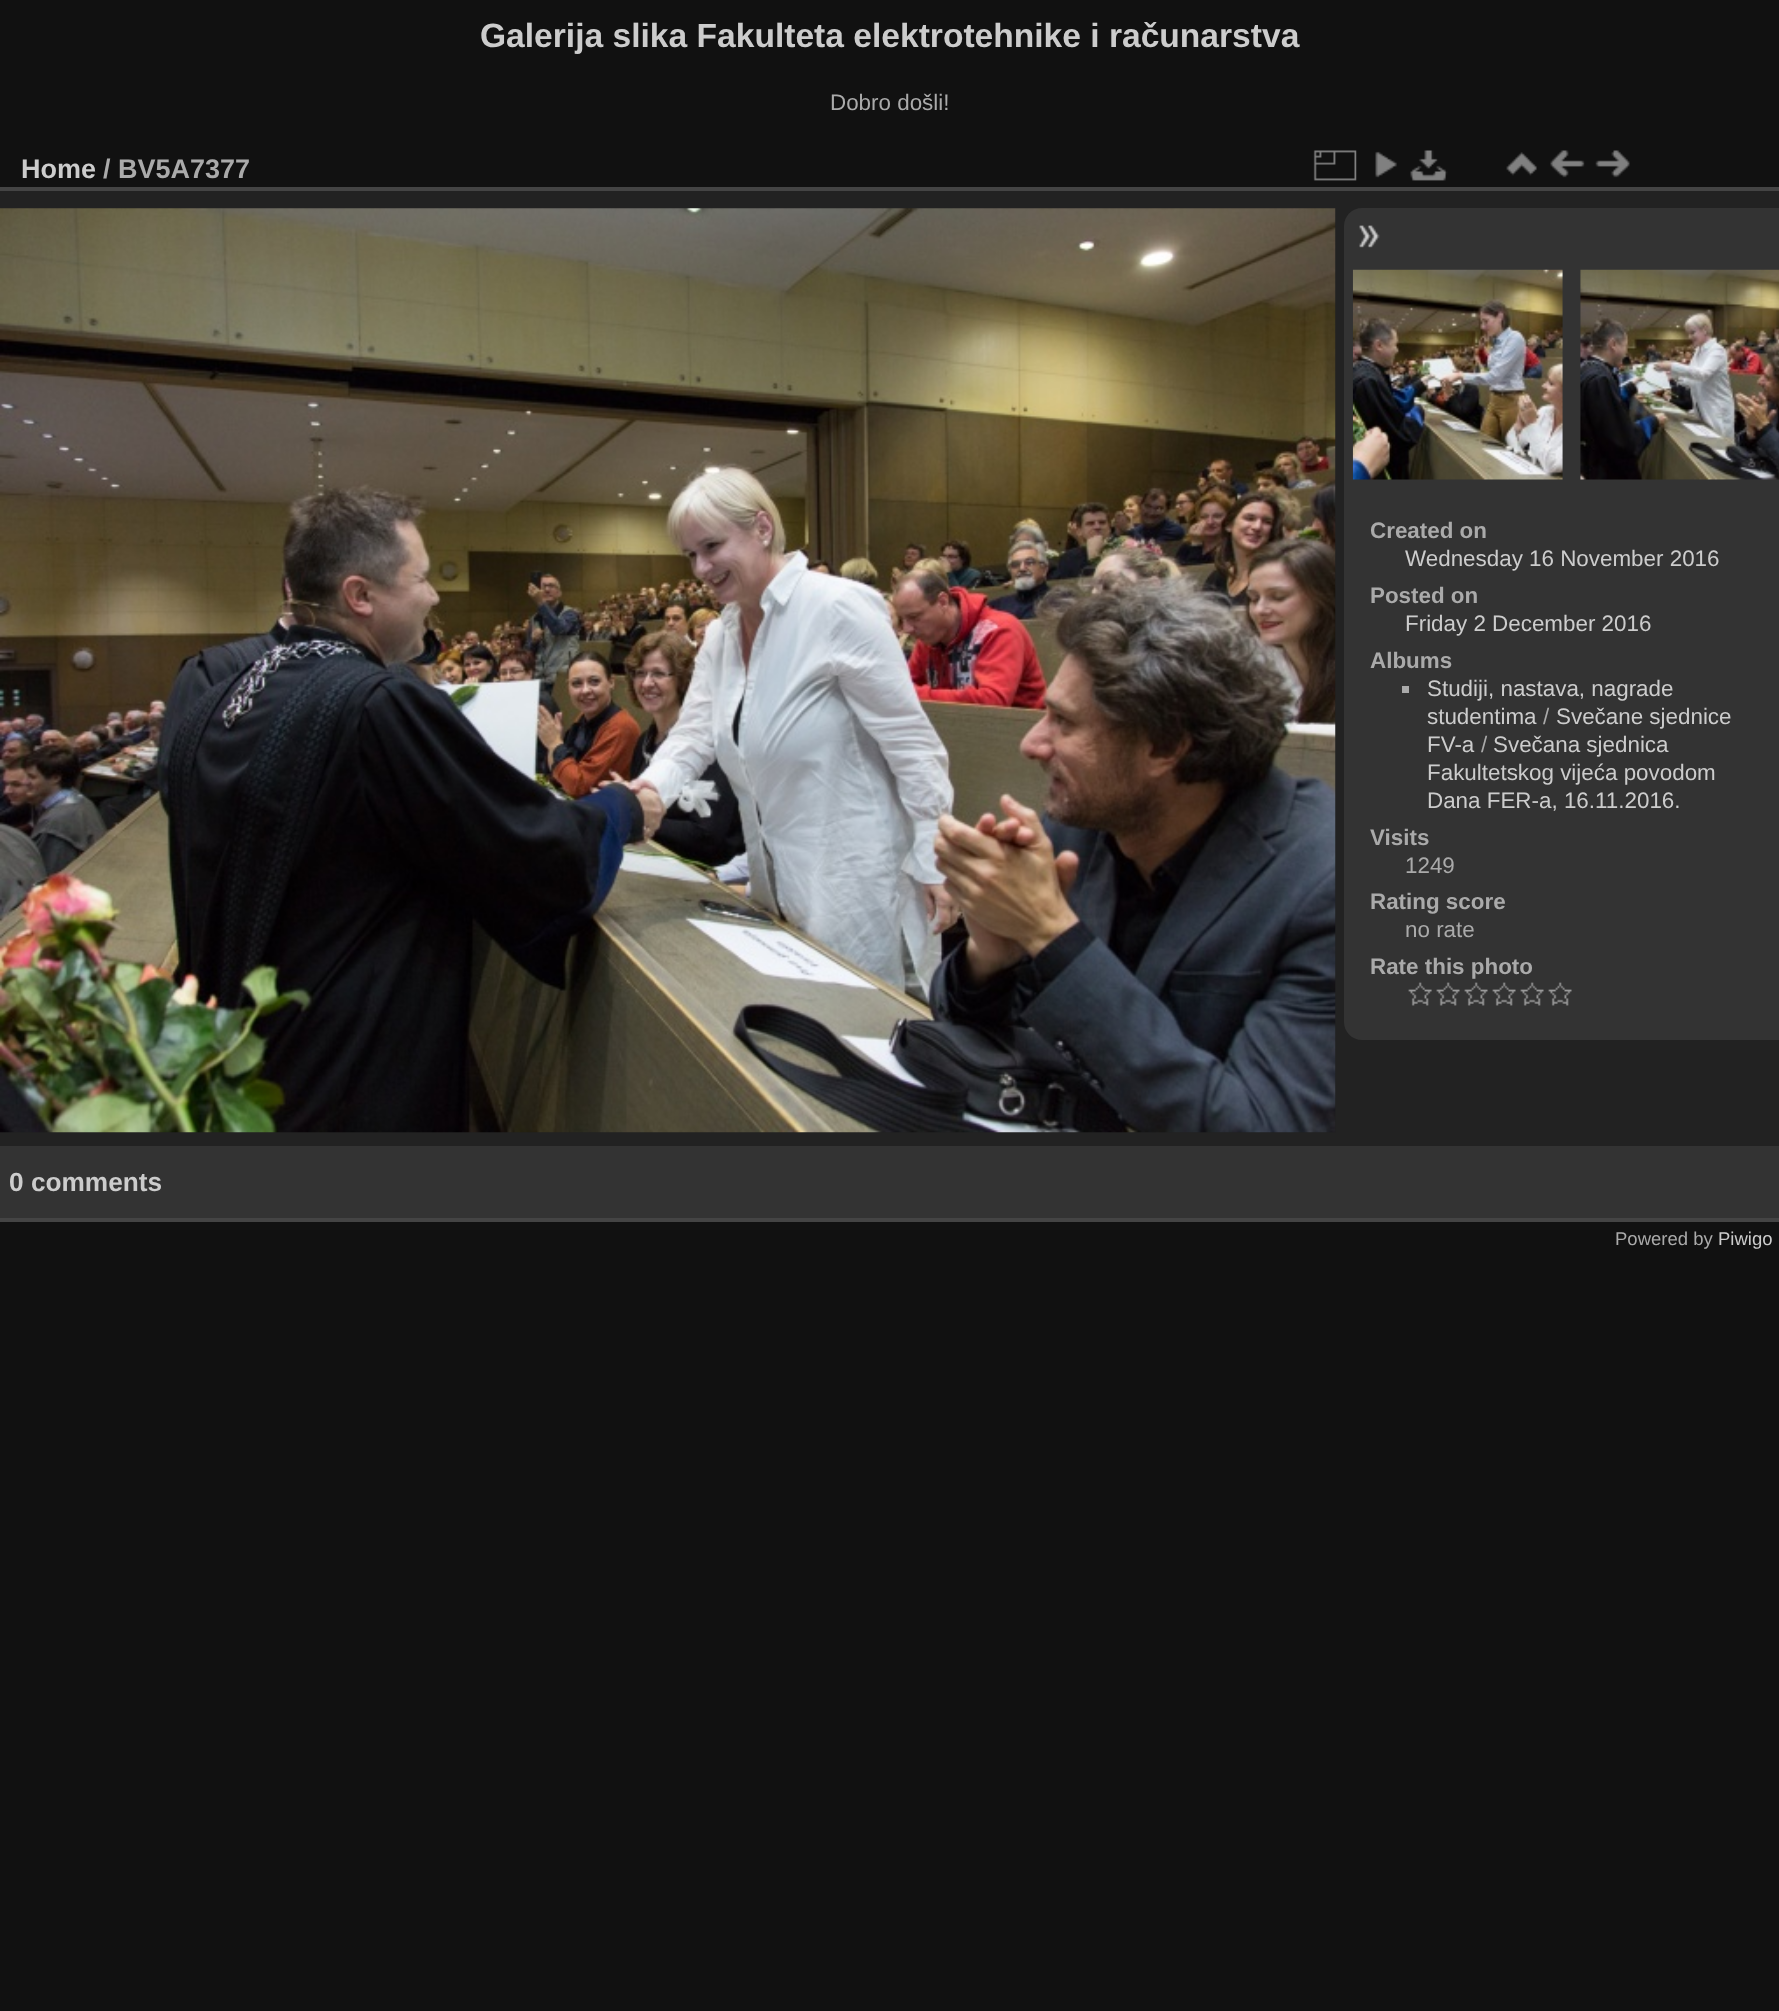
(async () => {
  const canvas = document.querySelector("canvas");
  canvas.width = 1779;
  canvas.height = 2011;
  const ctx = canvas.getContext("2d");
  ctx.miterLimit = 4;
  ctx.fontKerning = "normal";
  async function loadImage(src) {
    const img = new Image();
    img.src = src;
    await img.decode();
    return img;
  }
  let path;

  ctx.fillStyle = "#111111";
  ctx.fillRect(0, 0, 1779, 2011);
  for (const [x, y, w, h, color] of [
    [0, 191, 1779, 955, "#222222"],
    [0, 1218, 1779, 4, "#444444"],
    [0, 187, 1779, 4, "#444444"],
  ]) {
    ctx.fillStyle = color;
    ctx.fillRect(x, y, w, h);
  }
  ctx.drawImage(await loadImage("img/1.png"), 1313, 150, 44, 31);
  ctx.drawImage(await loadImage("img/2.png"), 1375, 151, 22, 27);
  ctx.drawImage(await loadImage("img/3.png"), 1410, 150, 38, 31);
  ctx.drawImage(await loadImage("img/4.png"), 1506, 152, 31, 24);
  ctx.drawImage(await loadImage("img/5.png"), 1550, 150, 35, 28);
  ctx.drawImage(await loadImage("img/6.png"), 1595, 150, 35, 28);
  ctx.drawImage(await loadImage("img/7.png"), 0, 208, 1336, 925);
  ctx.fillStyle = "#333333";
  path = new Path2D("M1362 208H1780V1040H1362C1352 1040 1344 1032 1344 1022V226C1344 216 1352 208 1362 208Z");
  ctx.fill(path);
  ctx.drawImage(await loadImage("img/8.png"), 1359, 225, 21, 23);
  ctx.drawImage(await loadImage("img/9.png"), 1352, 269, 211, 211);
  ctx.drawImage(await loadImage("img/10.png"), 1580, 269, 199, 211);
  ctx.fillStyle = "#aaaaaa";
  ctx.fillRect(1402, 686, 7, 7);
  ctx.drawImage(await loadImage("img/11.png"), 1408, 982, 24, 24);
  ctx.drawImage(await loadImage("img/12.png"), 1436, 982, 24, 24);
  ctx.drawImage(await loadImage("img/12.png"), 1464, 982, 24, 24);
  ctx.drawImage(await loadImage("img/12.png"), 1492, 982, 24, 24);
  ctx.drawImage(await loadImage("img/13.png"), 1520, 982, 24, 24);
  ctx.drawImage(await loadImage("img/12.png"), 1548, 982, 24, 24);
  ctx.fillStyle = "#333333";
  ctx.fillRect(0, 1146, 1779, 72);
  ctx.font = "bold 33.6px Liberation Sans";
  ctx.fillStyle = "#cccccc";
  ctx.fillText("Galerija slika Fakulteta elektrotehnike i računarstva", 480, 47);
  ctx.font = "22.4px Liberation Sans";
  ctx.fillStyle = "#aaaaaa";
  ctx.fillText("Dobro došli!", 830, 110);
  ctx.font = "bold 27px Liberation Sans";
  ctx.fillStyle = "#cccccc";
  ctx.fillText("Home", 21, 178);
  ctx.fillStyle = "#aaaaaa";
  ctx.fillText("/ BV5A7377", 103, 178);
  ctx.font = "bold 22.4px Liberation Sans";
  ctx.fillText("Created on", 1370, 538);
  ctx.font = "22.4px Liberation Sans";
  ctx.fillStyle = "#cccccc";
  ctx.fillText("Wednesday 16 November 2016", 1405, 566);
  ctx.font = "bold 22.4px Liberation Sans";
  ctx.fillStyle = "#aaaaaa";
  ctx.fillText("Posted on", 1370, 603);
  ctx.font = "22.4px Liberation Sans";
  ctx.fillStyle = "#cccccc";
  ctx.fillText("Friday 2 December 2016", 1405, 631);
  ctx.font = "bold 22.4px Liberation Sans";
  ctx.fillStyle = "#aaaaaa";
  ctx.fillText("Albums", 1370, 668);
  ctx.font = "22.4px Liberation Sans";
  ctx.fillStyle = "#cccccc";
  ctx.fillText("Studiji, nastava, nagrade", 1427, 696);
  ctx.fillText("studentima", 1427, 724);
  ctx.fillStyle = "#aaaaaa";
  ctx.fillText("/", 1543, 724);
  ctx.fillStyle = "#cccccc";
  ctx.fillText("Svečane sjednice", 1556, 724);
  ctx.fillText("FV-a", 1427, 752);
  ctx.fillStyle = "#aaaaaa";
  ctx.fillText("/", 1481, 752);
  ctx.fillStyle = "#cccccc";
  for (const [text, x, y] of [
    ["Svečana sjednica", 1493, 752],
    ["Fakultetskog vijeća povodom", 1427, 780],
    ["Dana FER-a, 16.11.2016.", 1427, 808],
  ]) {
    ctx.fillText(text, x, y);
  }
  ctx.font = "bold 22.4px Liberation Sans";
  ctx.fillStyle = "#aaaaaa";
  ctx.fillText("Visits", 1370, 845);
  ctx.font = "22.4px Liberation Sans";
  ctx.fillText("1249", 1405, 873);
  ctx.font = "bold 22.4px Liberation Sans";
  ctx.fillText("Rating score", 1370, 909);
  ctx.font = "22.4px Liberation Sans";
  ctx.fillText("no rate", 1405, 937);
  ctx.font = "bold 22.4px Liberation Sans";
  ctx.fillText("Rate this photo", 1370, 974);
  ctx.font = "bold 26.25px Liberation Sans";
  ctx.fillStyle = "#cccccc";
  ctx.fillText("0 comments", 9, 1191);
  ctx.font = "18.5px Liberation Sans";
  ctx.fillStyle = "#aaaaaa";
  ctx.fillText("Powered by", 1615, 1245);
  ctx.fillStyle = "#cccccc";
  ctx.fillText("Piwigo", 1718, 1245);
})();
